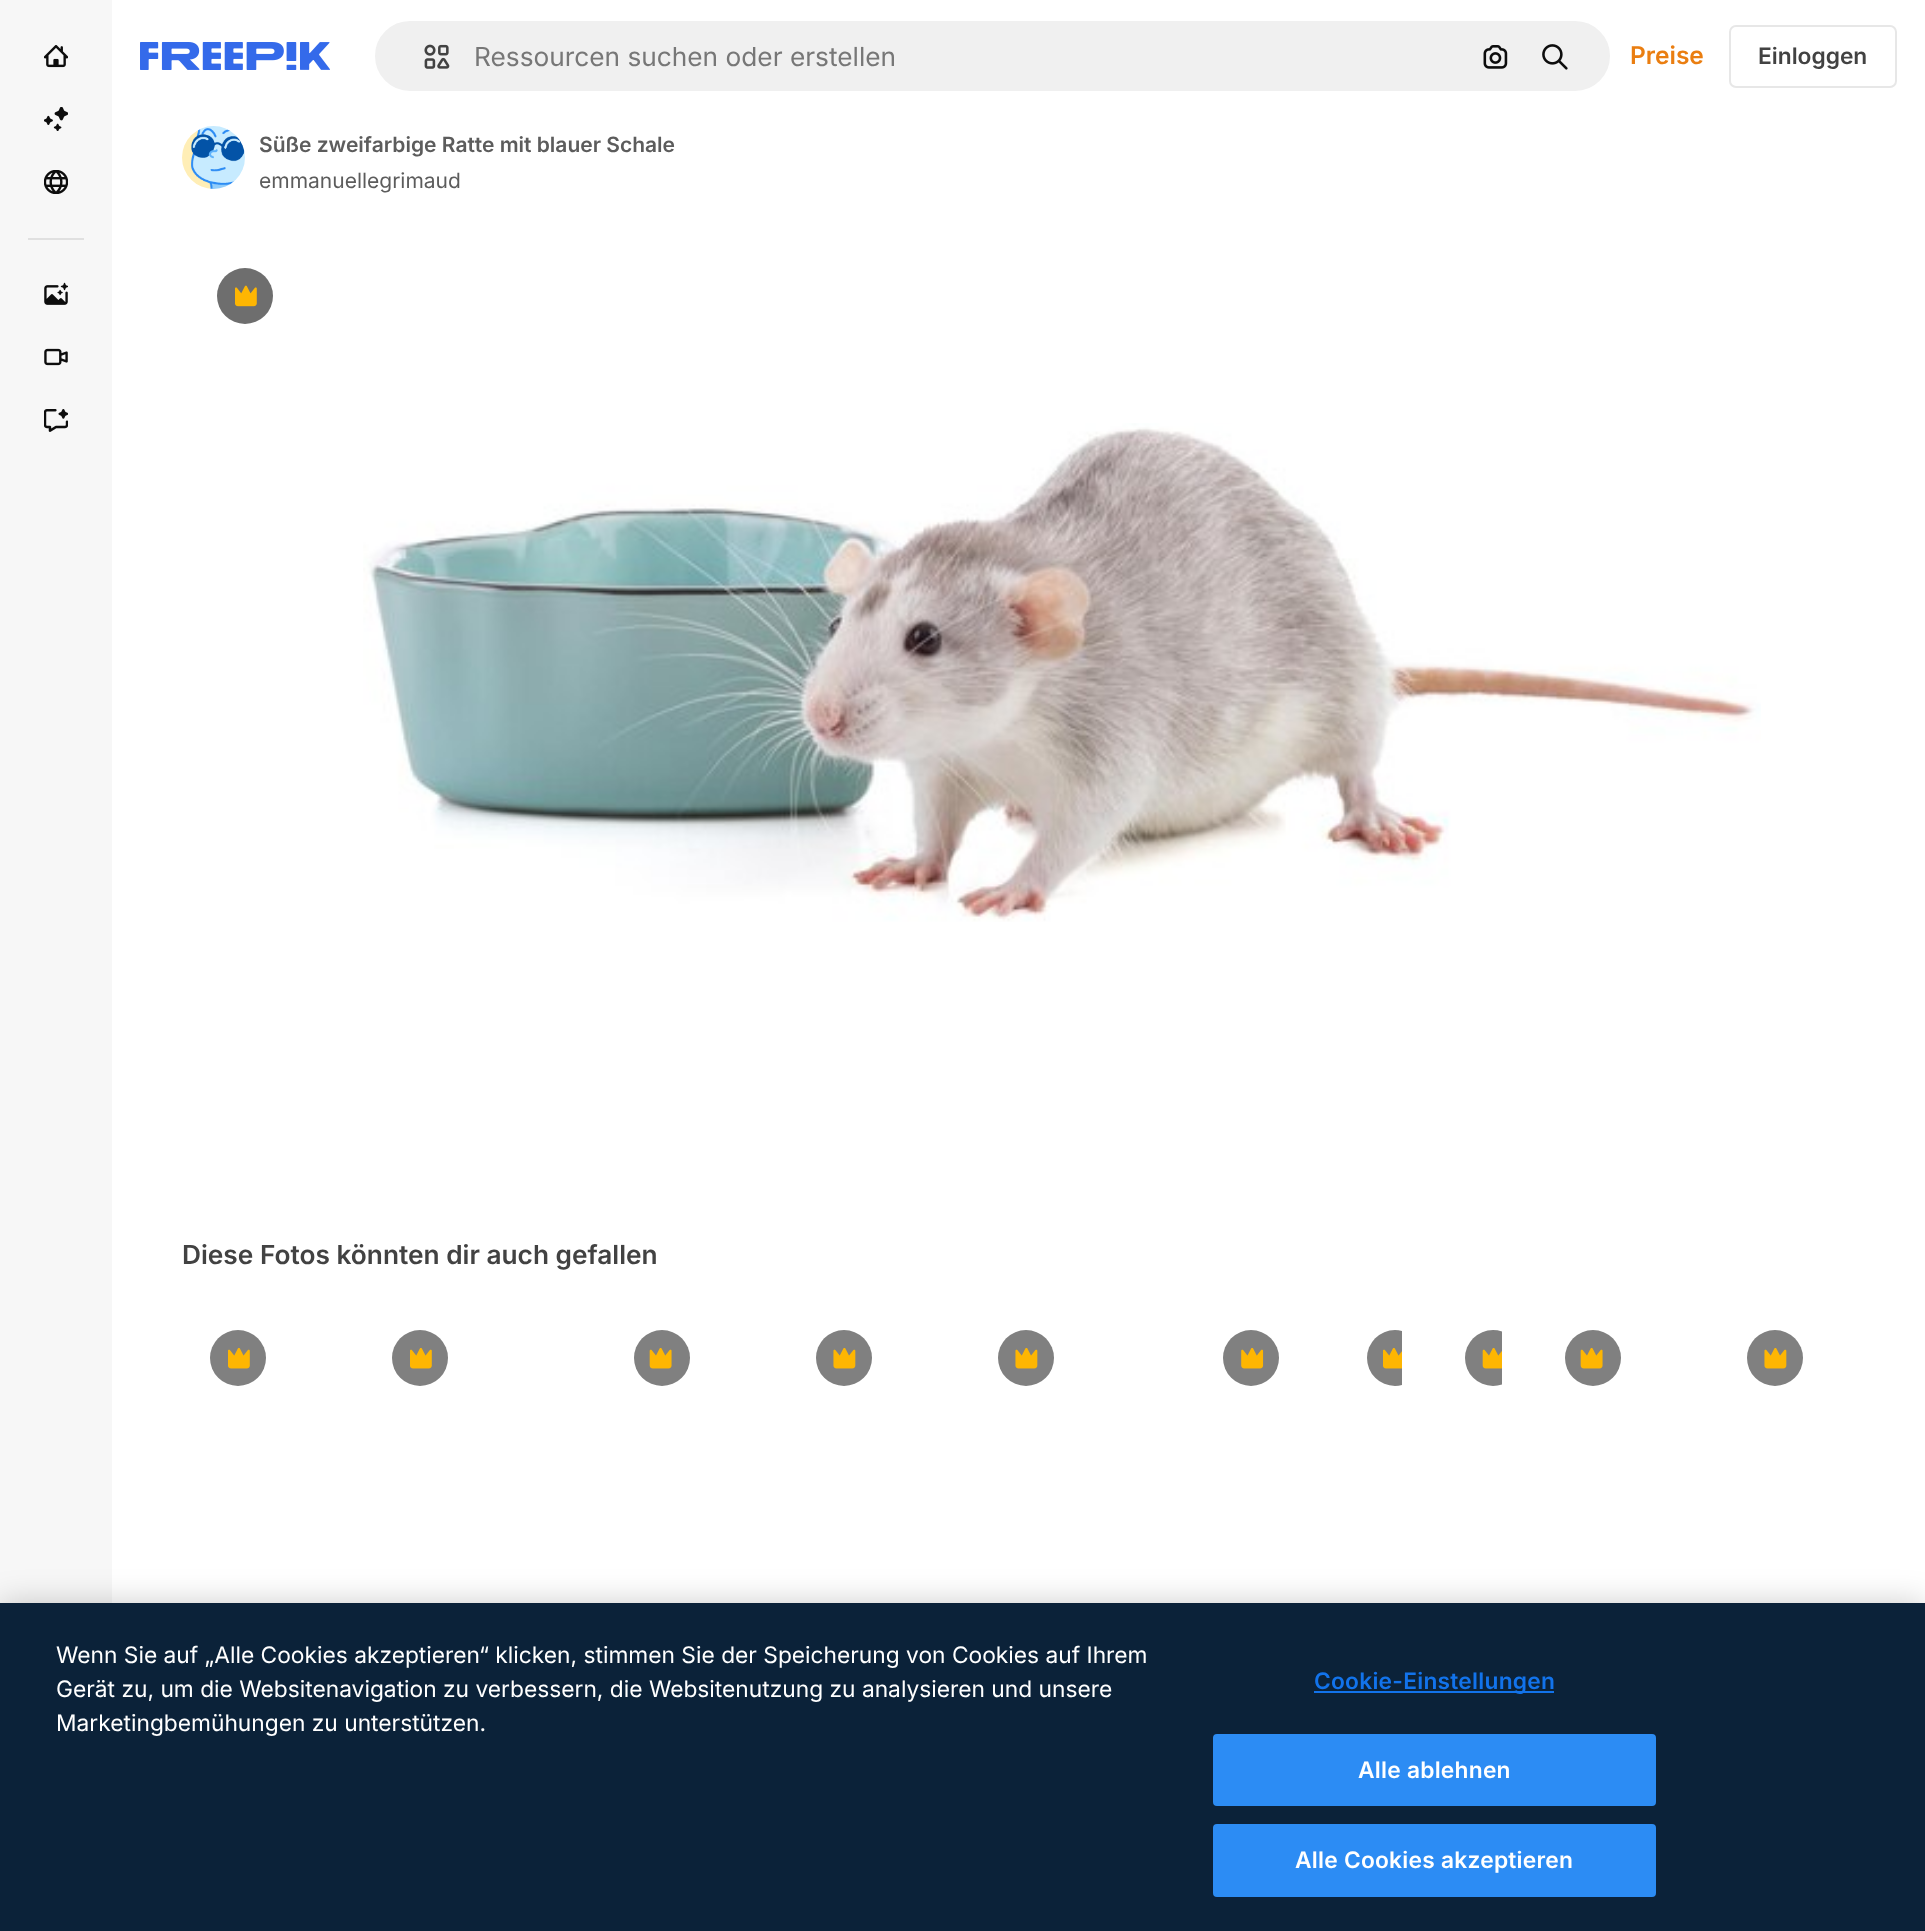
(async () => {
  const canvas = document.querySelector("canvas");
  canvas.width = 1925;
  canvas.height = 1931;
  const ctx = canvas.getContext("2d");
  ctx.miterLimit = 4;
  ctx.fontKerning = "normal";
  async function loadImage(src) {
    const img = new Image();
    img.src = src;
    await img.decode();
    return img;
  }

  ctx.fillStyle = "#ffffff";
  ctx.fillRect(0, 0, 1925, 1931);
  ctx.fillStyle = "#f7f7f7";
  ctx.fillRect(0, 0, 112, 1603);
  ctx.drawImage(await loadImage("img/1.png"), 44, 45, 24, 23);
  ctx.drawImage(await loadImage("img/2.png"), 44, 107, 24, 24);
  ctx.drawImage(await loadImage("img/3.png"), 44, 170, 24, 24);
  ctx.fillStyle = "#e0e0e0";
  ctx.fillRect(28, 238, 56, 2);
  ctx.drawImage(await loadImage("img/4.png"), 44, 282, 24, 23);
  ctx.drawImage(await loadImage("img/5.png"), 44, 348, 24, 18);
  ctx.drawImage(await loadImage("img/6.png"), 44, 409, 24, 23);
  ctx.drawImage(await loadImage("img/7.png"), 140, 42, 190, 28);
  ctx.fillStyle = "#f0f0f0";
  ctx.beginPath();
  ctx.roundRect(374, 20, 1237, 72, 36);
  ctx.fill();
  ctx.strokeStyle = "#ffffff";
  ctx.lineWidth = 2;
  ctx.stroke();
  ctx.drawImage(await loadImage("img/8.png"), 424, 44, 26, 25);
  ctx.drawImage(await loadImage("img/9.png"), 1483, 45, 25, 24);
  ctx.drawImage(await loadImage("img/10.png"), 1542, 44, 26, 26);
  ctx.beginPath();
  ctx.roundRect(1730, 26, 166, 61, 6);
  ctx.strokeStyle = "#e7e7e7";
  ctx.stroke();
  ctx.drawImage(await loadImage("img/11.png"), 182, 126, 63, 63);
  ctx.fillStyle = "#6e6e6e";
  ctx.beginPath();
  ctx.arc(245, 296, 28, 0, Math.PI * 2);
  ctx.fill();
  ctx.drawImage(await loadImage("img/12.png"), 235, 285, 22, 22);
  ctx.drawImage(await loadImage("img/13.png"), 363, 423, 1398, 499);
  ctx.fillStyle = "#808080";
  ctx.beginPath();
  ctx.arc(238, 1358, 28, 0, Math.PI * 2);
  ctx.fill();
  ctx.drawImage(await loadImage("img/14.png"), 228, 1348, 22, 21);
  ctx.beginPath();
  ctx.arc(420, 1358, 28, 0, Math.PI * 2);
  ctx.fill();
  ctx.drawImage(await loadImage("img/14.png"), 410, 1348, 22, 21);
  ctx.beginPath();
  ctx.arc(662, 1358, 28, 0, Math.PI * 2);
  ctx.fill();
  ctx.drawImage(await loadImage("img/15.png"), 649, 1348, 23, 21);
  ctx.beginPath();
  ctx.arc(844, 1358, 28, 0, Math.PI * 2);
  ctx.fill();
  ctx.drawImage(await loadImage("img/16.png"), 833, 1348, 23, 21);
  ctx.beginPath();
  ctx.arc(1026, 1358, 28, 0, Math.PI * 2);
  ctx.fill();
  ctx.drawImage(await loadImage("img/16.png"), 1015, 1348, 23, 21);
  ctx.beginPath();
  ctx.arc(1251, 1358, 28, 0, Math.PI * 2);
  ctx.fill();
  ctx.drawImage(await loadImage("img/17.png"), 1241, 1348, 23, 21);
  ctx.save();
  ctx.beginPath();
  ctx.roundRect(1339, 1302, 63, 350, 28);
  ctx.clip();
  ctx.beginPath();
  ctx.arc(1395, 1358, 28, 0, Math.PI * 2);
  ctx.fill();
  ctx.restore();
  ctx.drawImage(await loadImage("img/18.png"), 1383, 1348, 19, 21);
  ctx.save();
  ctx.beginPath();
  ctx.roundRect(1437, 1302, 65, 350, 28);
  ctx.clip();
  ctx.beginPath();
  ctx.arc(1493, 1358, 28, 0, Math.PI * 2);
  ctx.fill();
  ctx.restore();
  ctx.drawImage(await loadImage("img/19.png"), 1482, 1348, 20, 21);
  ctx.beginPath();
  ctx.arc(1593, 1358, 28, 0, Math.PI * 2);
  ctx.fill();
  ctx.drawImage(await loadImage("img/15.png"), 1580, 1348, 23, 21);
  ctx.beginPath();
  ctx.arc(1775, 1358, 28, 0, Math.PI * 2);
  ctx.fill();
  ctx.drawImage(await loadImage("img/16.png"), 1764, 1348, 23, 21);
  ctx.fillStyle = "rgba(0, 0, 0, 0.2)";
  ctx.filter = "blur(16px)";
  ctx.beginPath();
  ctx.rect(0, 1603, 1925, 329);
  ctx.fill();
  ctx.filter = "none";
  ctx.fillStyle = "#0b2239";
  ctx.fillRect(0, 1603, 1925, 328);
  ctx.fillStyle = "#1273eb";
  ctx.fillRect(1314, 1691, 240, 2);
  ctx.fillStyle = "#2c8cf4";
  ctx.beginPath();
  ctx.roundRect(1214, 1735, 441, 70, 3);
  ctx.fill();
  ctx.strokeStyle = "#2c8cf4";
  ctx.stroke();
  ctx.beginPath();
  ctx.roundRect(1214, 1825, 441, 71, 3);
  ctx.fill();
  ctx.stroke();
  ctx.font = "26.25px Inter";
  ctx.fillStyle = "#777777";
  ctx.fillText("Ressourcen suchen oder erstellen", 474, 66);
  ctx.font = "600 24.5px Inter";
  ctx.fillStyle = "#ea7e11";
  ctx.fillText("Preise", 1630, 64);
  ctx.font = "600 22.75px Inter";
  ctx.fillStyle = "#424242";
  ctx.fillText("Einloggen", 1758, 64);
  ctx.font = "600 21px Inter";
  ctx.fillStyle = "#5c5c5c";
  ctx.fillText("Süße zweifarbige Ratte mit blauer Schale", 259, 152);
  ctx.font = "21px Inter";
  ctx.fillText("emmanuellegrimaud", 259, 188);
  ctx.font = "600 26.25px Inter";
  ctx.fillStyle = "#424242";
  ctx.fillText("Diese Fotos könnten dir auch gefallen", 182, 1264);
  ctx.font = "22.75px Inter";
  ctx.fillStyle = "#ffffff";
  for (const [text, x, y] of [
    ["Wenn Sie auf „Alle Cookies akzeptieren“ klicken, stimmen Sie der Speicherung von Cookies auf Ihrem", 56, 1663],
    ["Gerät zu, um die Websitenavigation zu verbessern, die Websitenutzung zu analysieren und unsere", 56, 1697],
    ["Marketingbemühungen zu unterstützen.", 56, 1731],
  ]) {
    ctx.fillText(text, x, y);
  }
  ctx.letterSpacing = "0.25px";
  ctx.font = "600 22.75px Inter";
  ctx.fillStyle = "#1273eb";
  ctx.fillText("Cookie-Einstellungen", 1314, 1689);
  ctx.fillStyle = "#ffffff";
  ctx.fillText("Alle ablehnen", 1358, 1778);
  ctx.fillText("Alle Cookies akzeptieren", 1295, 1868);
})();
